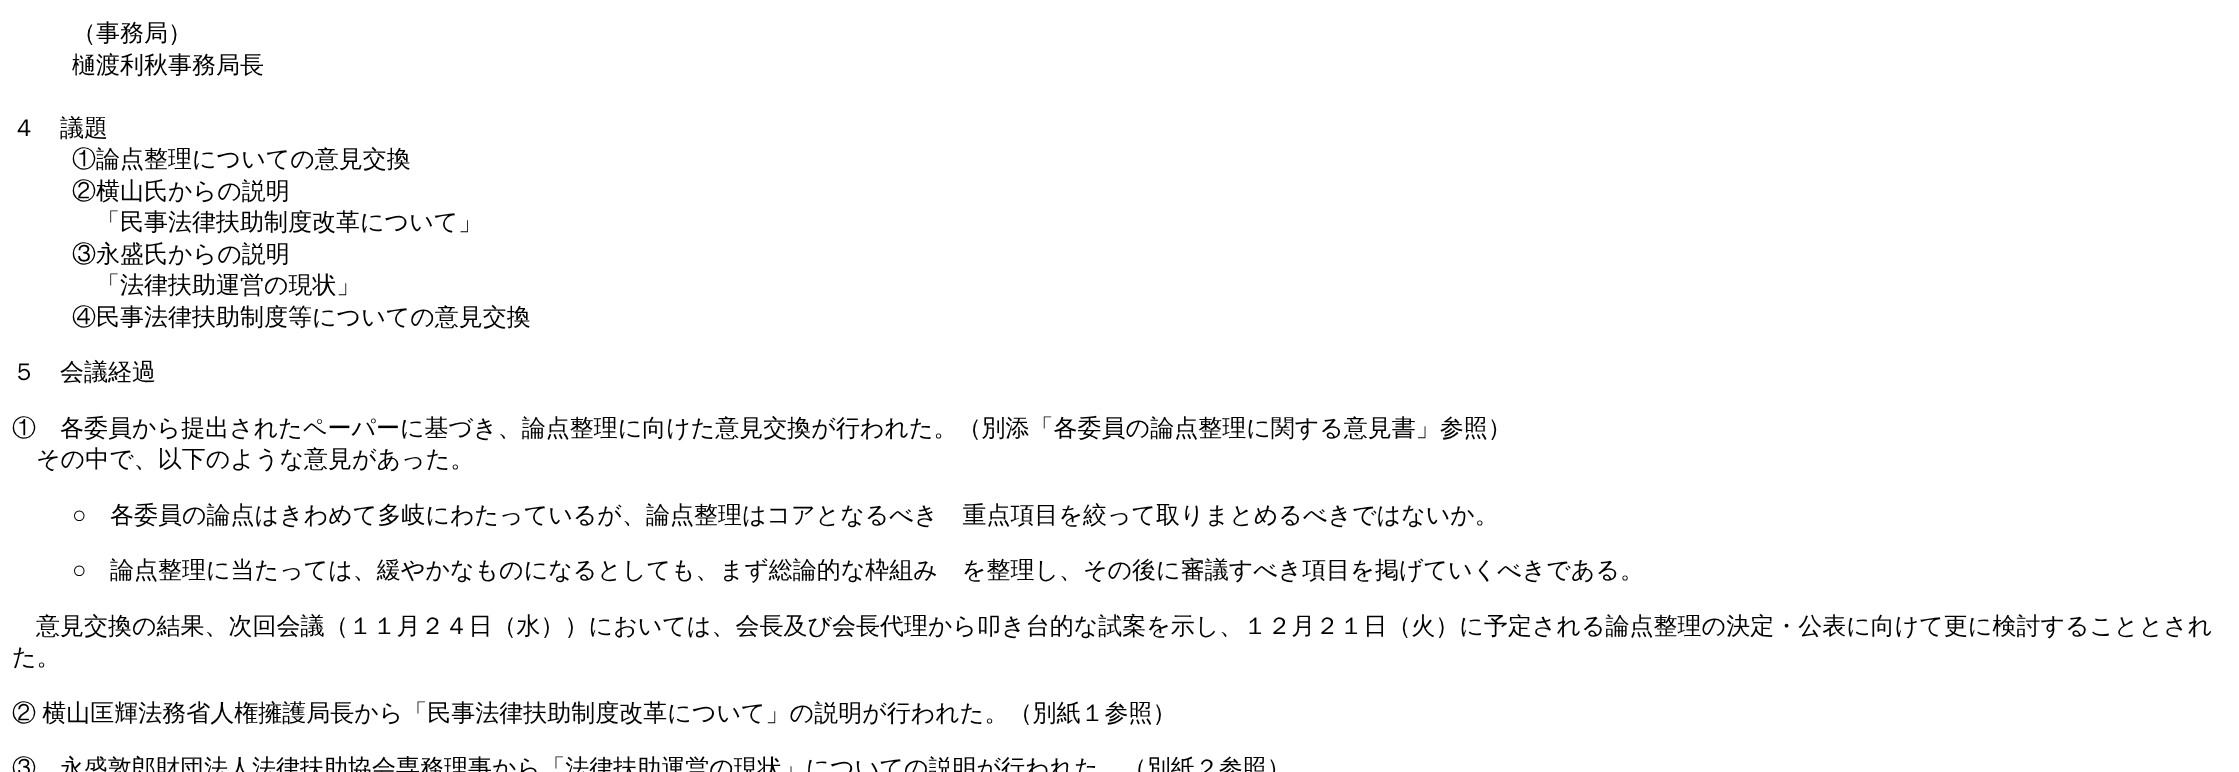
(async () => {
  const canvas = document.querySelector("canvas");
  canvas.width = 2239;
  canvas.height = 772;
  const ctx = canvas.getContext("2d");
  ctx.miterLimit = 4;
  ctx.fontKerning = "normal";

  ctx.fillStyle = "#ffffff";
  ctx.fillRect(0, 0, 2239, 772);
  ctx.font = "500 24px WenQuanYi Zen Hei";
  ctx.fillStyle = "#000000";
  for (const [text, x, y] of [
    ["（事務局）", 72, 41],
    ["樋渡利秋事務局長", 72, 73],
    ["４　議題", 12, 136],
    ["①論点整理についての意見交換", 72, 167],
    ["②横山氏からの説明", 72, 199],
    ["「民事法律扶助制度改革について」", 96, 230],
    ["③永盛氏からの説明", 72, 262],
    ["「法律扶助運営の現状」", 96, 293],
    ["④民事法律扶助制度等についての意見交換", 72, 325],
    ["５　会議経過", 12, 380],
    ["①　各委員から提出されたペーパーに基づき、論点整理に向けた意見交換が行われた。（別添「各委員の論点整理に関する意見書」参照）", 12, 436],
    ["その中で、以下のような意見があった。", 36, 467],
  ]) {
    ctx.fillText(text, x, y);
  }
  ctx.font = "24px Liberation Serif";
  ctx.fillText("○", 72, 523);
  ctx.font = "500 24px WenQuanYi Zen Hei";
  ctx.fillText("各委員の論点はきわめて多岐にわたっているが、論点整理はコアとなるべき　重点項目を絞って取りまとめるべきではないか。", 110, 523);
  ctx.font = "24px Liberation Serif";
  ctx.fillText("○", 72, 578);
  ctx.font = "500 24px WenQuanYi Zen Hei";
  for (const [text, x, y] of [
    ["論点整理に当たっては、緩やかなものになるとしても、まず総論的な枠組み　を整理し、その後に審議すべき項目を掲げていくべきである。", 110, 578],
    ["意見交換の結果、次回会議（１１月２４日（水））においては、会長及び会長代理から叩き台的な試案を示し、１２月２１日（火）に予定される論点整理の決定・公表に向けて更に検討することとされ", 36, 634],
    ["た。", 12, 665],
  ]) {
    ctx.fillText(text, x, y);
  }
  ctx.wordSpacing = "-1px";
  ctx.fillText("② 横山匡輝法務省人権擁護局長から「民事法律扶助制度改革について」の説明が行われた。（別紙１参照）", 12, 721);
  ctx.wordSpacing = "0px";
  ctx.fillText("③　永盛敦郎財団法人法律扶助協会専務理事から「法律扶助運営の現状」についての説明が行われた。（別紙２参照）", 12, 776);
})();
